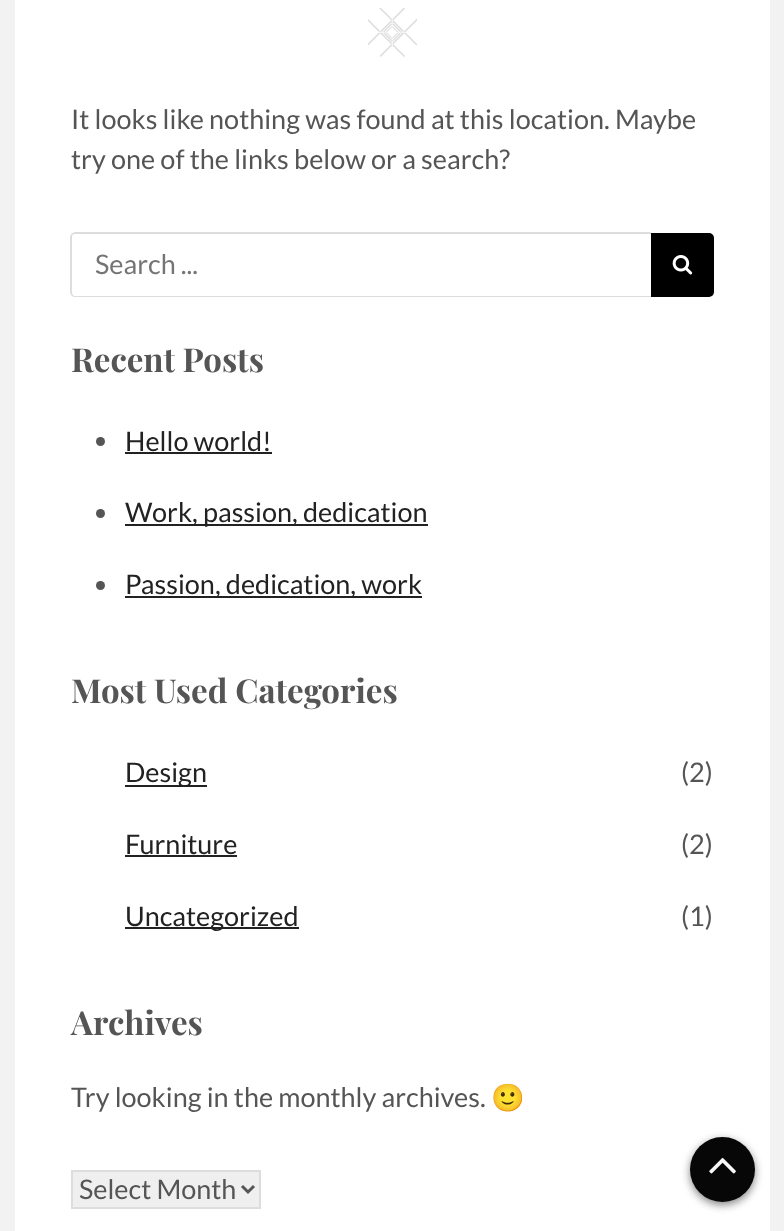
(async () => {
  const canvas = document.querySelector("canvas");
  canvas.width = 784;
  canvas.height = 1231;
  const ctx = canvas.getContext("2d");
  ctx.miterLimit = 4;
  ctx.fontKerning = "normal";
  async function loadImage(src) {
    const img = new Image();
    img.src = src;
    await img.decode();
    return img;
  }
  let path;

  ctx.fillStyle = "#f2f2f2";
  ctx.fillRect(0, 0, 784, 1231);
  ctx.fillStyle = "#ffffff";
  ctx.fillRect(15, 0, 755, 1231);
  ctx.drawImage(await loadImage("img/1.png"), 368, 8, 49, 49);
  ctx.fillStyle = "#dddddd";
  path = new Path2D("M75 232H651V297H75C73 297 70 295 70 292V237C70 235 73 232 75 232ZM75 234H651V296H75C73 296 72 294 72 292V237C72 235 73 234 75 234Z");
  ctx.fill(path, "evenodd");
  ctx.fillStyle = "#000000";
  ctx.beginPath();
  ctx.roundRect(651, 233, 63, 64, [0, 5, 5, 0]);
  ctx.fill();
  ctx.drawImage(await loadImage("img/2.png"), 672, 255, 21, 20);
  ctx.fillStyle = "#555555";
  ctx.beginPath();
  ctx.arc(100.5, 441.5, 4.5, 0, Math.PI * 2);
  ctx.fill();
  ctx.fillStyle = "#222222";
  ctx.fillRect(125, 452, 147, 2);
  ctx.fillStyle = "#555555";
  ctx.beginPath();
  ctx.arc(100.5, 513.5, 4.5, 0, Math.PI * 2);
  ctx.fill();
  ctx.fillStyle = "#222222";
  ctx.fillRect(125, 524, 303, 2);
  ctx.fillStyle = "#555555";
  ctx.beginPath();
  ctx.arc(100.5, 585.5, 4.5, 0, Math.PI * 2);
  ctx.fill();
  for (const [x, y, w, h, color] of [
    [125, 596, 297, 2, "#222222"],
    [125, 785, 82, 2, "#222222"],
    [125, 855, 112, 2, "#222222"],
    [125, 927, 174, 2, "#222222"],
  ]) {
    ctx.fillStyle = color;
    ctx.fillRect(x, y, w, h);
  }
  ctx.fillStyle = "#efefef";
  ctx.beginPath();
  ctx.rect(72, 1171, 188, 37);
  ctx.fill();
  ctx.strokeStyle = "#dddddd";
  ctx.lineWidth = 2;
  ctx.stroke();
  path = new Path2D("M242 1186L248 1192L254 1186");
  ctx.strokeStyle = "#555555";
  ctx.lineWidth = 3;
  ctx.stroke(path);
  ctx.fillStyle = "rgba(7, 7, 7, 0.5)";
  ctx.filter = "blur(4.5px)";
  ctx.beginPath();
  ctx.roundRect(690, 1140, 65, 65, 32.5);
  ctx.fill();
  ctx.filter = "none";
  ctx.fillStyle = "#070707";
  ctx.beginPath();
  ctx.arc(722.5, 1169.5, 32.5, 0, Math.PI * 2);
  ctx.fill();
  ctx.drawImage(await loadImage("img/3.png"), 709, 1158, 27, 16);
  ctx.font = "27px Lato";
  ctx.fillStyle = "#555555";
  ctx.fillText("It looks like nothing was found at this location. Maybe", 71, 129);
  ctx.fillText("try one of the links below or a search?", 71, 169);
  ctx.fillStyle = "#757575";
  ctx.fillText("Search ...", 95, 274);
  ctx.font = "bold 33px Playfair Display";
  ctx.fillStyle = "#555555";
  ctx.fillText("Recent Posts", 71, 372);
  ctx.font = "27px Lato";
  ctx.fillStyle = "#222222";
  for (const [text, x, y] of [
    ["Hello world!", 125, 451],
    ["Work, passion, dedication", 125, 522],
    ["Passion, dedication, work", 125, 594],
  ]) {
    ctx.fillText(text, x, y);
  }
  ctx.font = "bold 33px Playfair Display";
  ctx.fillStyle = "#555555";
  ctx.fillText("Most Used Categories", 71, 703);
  ctx.font = "27px Lato";
  ctx.fillStyle = "#222222";
  ctx.fillText("Design", 125, 782);
  ctx.fillStyle = "#555555";
  ctx.fillText("(2)", 681, 782);
  ctx.fillStyle = "#222222";
  ctx.fillText("Furniture", 125, 854);
  ctx.fillStyle = "#555555";
  ctx.fillText("(2)", 681, 854);
  ctx.fillStyle = "#222222";
  ctx.fillText("Uncategorized", 125, 926);
  ctx.fillStyle = "#555555";
  ctx.fillText("(1)", 681, 926);
  ctx.font = "bold 33px Playfair Display";
  ctx.fillText("Archives", 71, 1035);
  ctx.font = "27px Lato";
  ctx.fillText("Try looking in the monthly archives.", 71, 1107);
  ctx.font = "27px Noto Color Emoji";
  ctx.fillText("🙂", 491, 1107);
  ctx.font = "27px Lato";
  ctx.fillText("Select Month", 79, 1199);
})();
